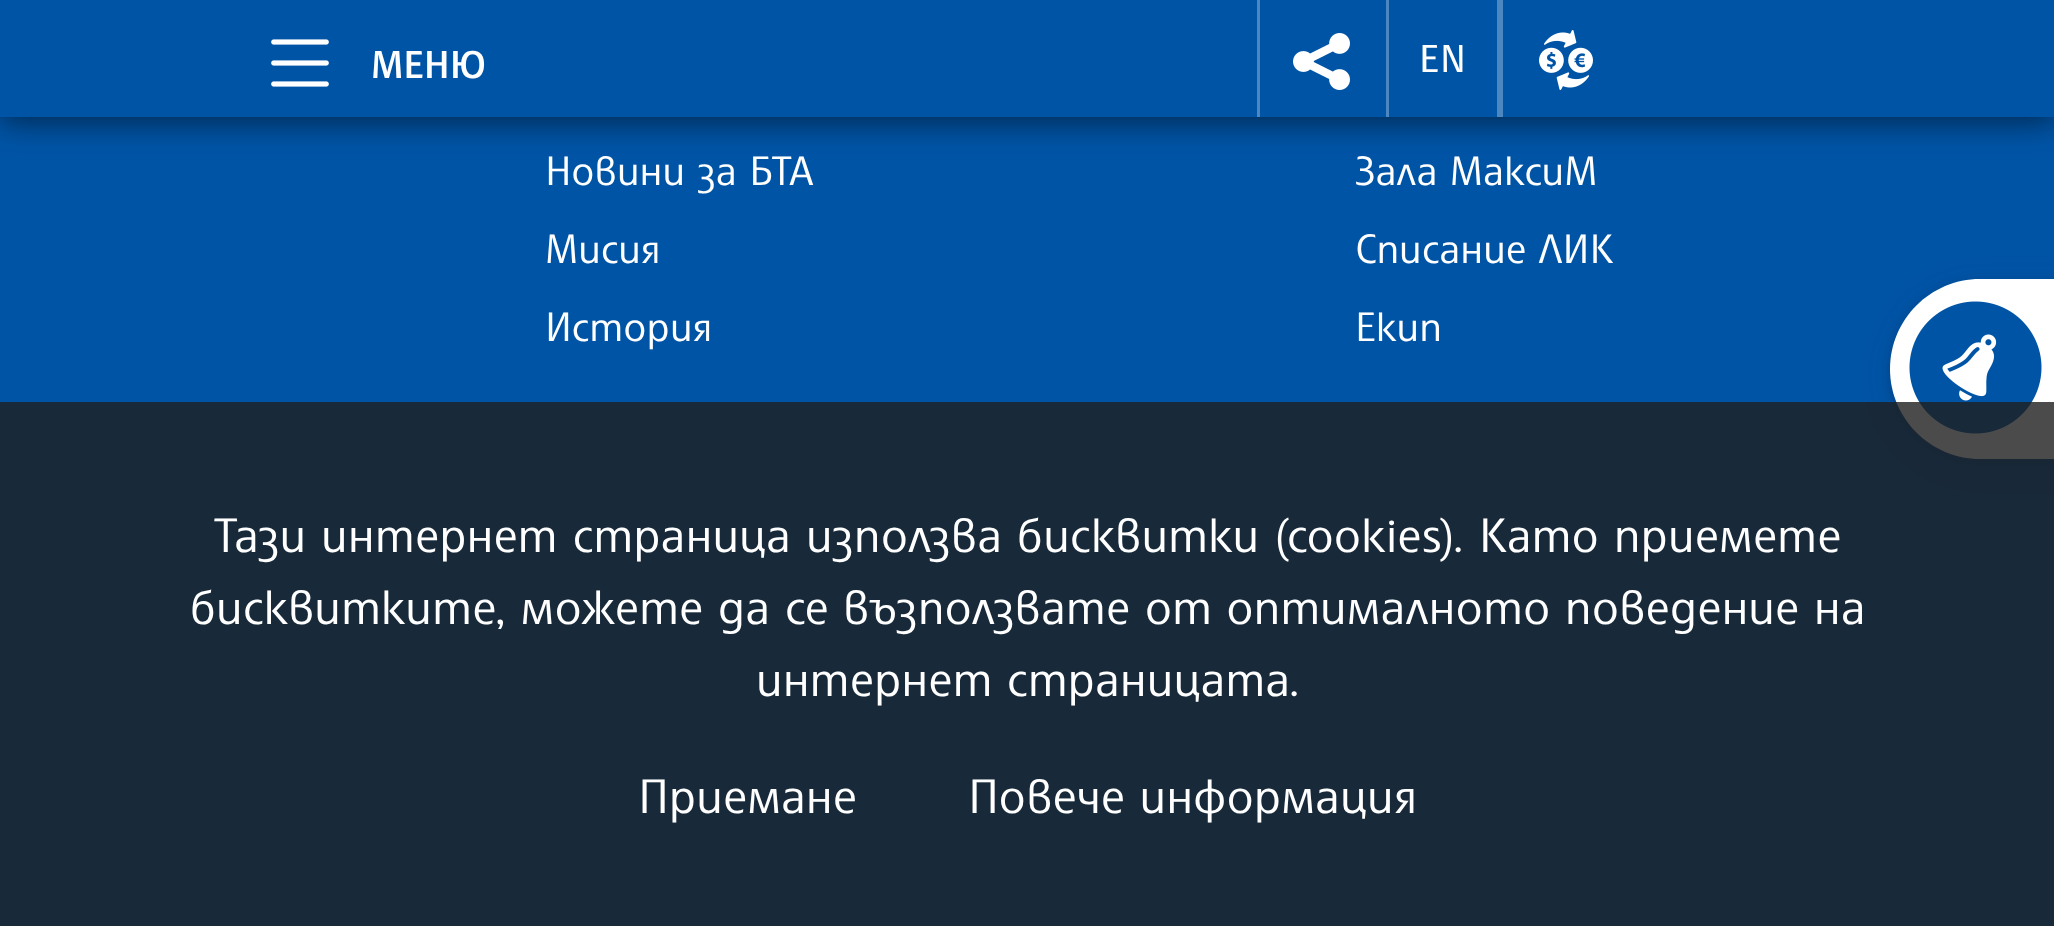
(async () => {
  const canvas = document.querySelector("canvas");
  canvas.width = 2054;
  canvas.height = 926;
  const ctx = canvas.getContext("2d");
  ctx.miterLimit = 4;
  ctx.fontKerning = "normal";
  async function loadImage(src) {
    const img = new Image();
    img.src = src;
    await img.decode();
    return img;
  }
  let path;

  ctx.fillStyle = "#0054a6";
  ctx.fillRect(0, 0, 2054, 926);
  ctx.fillStyle = "rgba(0, 0, 0, 0.5)";
  ctx.filter = "blur(15px)";
  ctx.beginPath();
  ctx.rect(0, 6, 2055, 117);
  ctx.fill();
  ctx.filter = "none";
  ctx.fillStyle = "#0054a6";
  ctx.fillRect(0, 0, 2054, 117);
  ctx.drawImage(await loadImage("img/1.png"), 271, 39, 58, 48);
  ctx.fillStyle = "#4d87c1";
  ctx.fillRect(1386, 0, 3, 117);
  ctx.fillRect(1257, 0, 3, 117);
  ctx.drawImage(await loadImage("img/2.png"), 1293, 33, 57, 57);
  ctx.fillRect(1497, 0, 6, 117);
  ctx.drawImage(await loadImage("img/3.png"), 1539, 30, 54, 60);
  ctx.fillStyle = "rgba(0, 22, 46, 0.1)";
  ctx.filter = "blur(15px)";
  ctx.beginPath();
  ctx.roundRect(1890, 285, 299, 180, 90);
  ctx.fill();
  ctx.filter = "none";
  ctx.fillStyle = "rgba(0, 22, 46, 0.2)";
  ctx.filter = "blur(4.5px)";
  ctx.beginPath();
  ctx.roundRect(1890, 282, 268, 180, 90);
  ctx.fill();
  ctx.filter = "none";
  ctx.fillStyle = "#ffffff";
  path = new Path2D("M1980 279H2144V459H1980C1930.5 459 1890 418.5 1890 369C1890 319.5 1930.5 279 1980 279Z");
  ctx.fill(path);
  ctx.drawImage(await loadImage("img/4.png"), 1909, 301, 133, 133);
  ctx.fillStyle = "rgba(30, 30, 30, 0.8)";
  ctx.fillRect(0, 402, 2054, 524);
  ctx.font = "600 38.5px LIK";
  ctx.fillStyle = "#ffffff";
  ctx.fillText("МЕНЮ", 371, 78);
  ctx.letterSpacing = "1px";
  ctx.font = "500 38.5px LIK";
  ctx.fillText("EN", 1419, 72);
  ctx.letterSpacing = "0px";
  ctx.font = "40.75px LIK";
  for (const [text, x, y] of [
    ["Новини за БТА", 545, 185],
    ["Мисия", 545, 263],
    ["История", 545, 341],
    ["Зала МаксиМ", 1355, 185],
    ["Списание ЛИК", 1355, 263],
    ["Екип", 1355, 341],
  ]) {
    ctx.fillText(text, x, y);
  }
  ctx.wordSpacing = "0.5px";
  ctx.font = "48px LIK";
  ctx.fillText("Тази интернет страница използва бисквитки (cookies). Като приемете", 214, 552);
  ctx.wordSpacing = "0px";
  for (const [text, x, y] of [
    ["бисквитките, можете да се възползвате от оптималното поведение на", 190, 624],
    ["интернет страницата.", 756, 696],
    ["Приемане", 638, 813],
    ["Повече информация", 968, 813],
  ]) {
    ctx.fillText(text, x, y);
  }
})();
